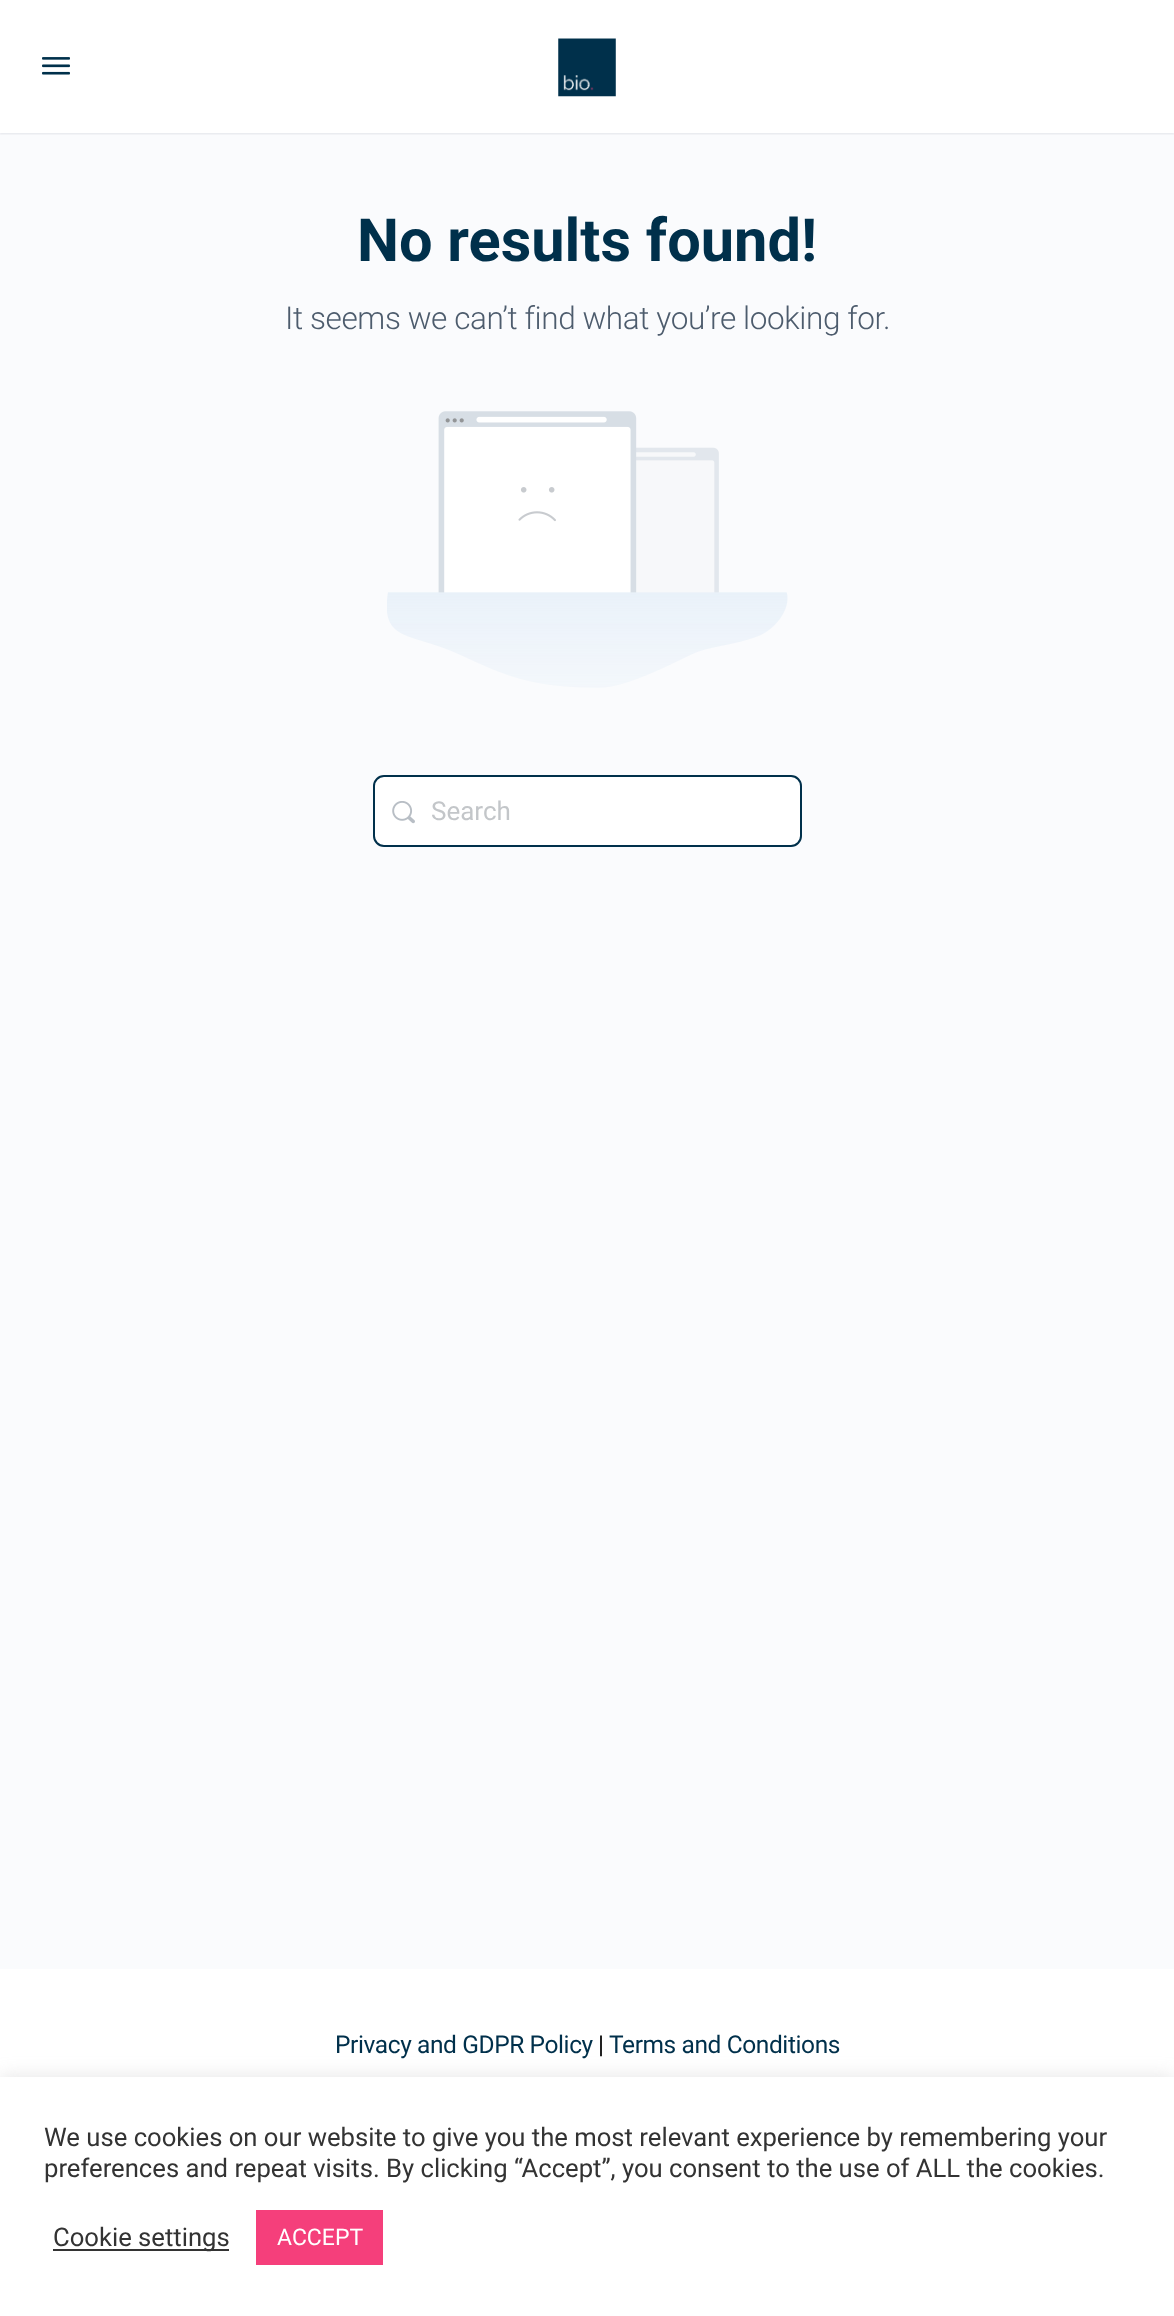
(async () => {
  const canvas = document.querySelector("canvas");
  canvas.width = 1174;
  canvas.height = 2316;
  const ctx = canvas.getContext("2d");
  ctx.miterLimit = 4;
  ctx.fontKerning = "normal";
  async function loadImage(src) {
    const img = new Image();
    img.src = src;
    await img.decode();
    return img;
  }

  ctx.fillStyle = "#fafbfd";
  ctx.fillRect(0, 0, 1174, 2316);
  ctx.fillStyle = "rgba(65, 71, 108, 0.15)";
  ctx.filter = "blur(1px)";
  ctx.beginPath();
  ctx.rect(0, 0, 1174, 133);
  ctx.fill();
  ctx.filter = "none";
  ctx.fillStyle = "rgba(139, 141, 157, 0.05)";
  ctx.fillRect(0, 133, 1174, 2);
  ctx.fillStyle = "#ffffff";
  ctx.fillRect(0, 0, 1174, 133);
  ctx.drawImage(await loadImage("img/1.png"), 42, 57, 28, 18);
  ctx.drawImage(await loadImage("img/2.png"), 558, 38, 58, 59);
  ctx.drawImage(await loadImage("img/3.png"), 387, 411, 401, 277);
  ctx.beginPath();
  ctx.roundRect(374, 776, 427, 70, 10);
  ctx.fill();
  ctx.strokeStyle = "#00304b";
  ctx.lineWidth = 2;
  ctx.stroke();
  ctx.drawImage(await loadImage("img/4.png"), 392, 801, 23, 23);
  ctx.fillRect(0, 1969, 1174, 108);
  ctx.fillStyle = "rgba(172, 171, 171, 0.3)";
  ctx.filter = "blur(9px)";
  ctx.beginPath();
  ctx.rect(0, 2076, 1174, 239);
  ctx.fill();
  ctx.filter = "none";
  for (const [x, y, w, h, color] of [
    [0, 2077, 1174, 239, "#ffffff"],
    [53, 2249, 176, 2, "#333333"],
    [256, 2210, 127, 55, "#f53f7b"],
  ]) {
    ctx.fillStyle = color;
    ctx.fillRect(x, y, w, h);
  }
  ctx.font = "bold 59.5px Roboto";
  ctx.fillStyle = "#00304b";
  ctx.fillText("No results found!", 357, 261);
  ctx.letterSpacing = "-0.4px";
  ctx.font = "300 31.5px Roboto";
  ctx.fillStyle = "#4d5c6d";
  ctx.fillText("It seems we can’t find what you’re looking for.", 285, 329);
  ctx.letterSpacing = "0px";
  ctx.font = "26px Roboto";
  ctx.fillStyle = "#c3c6c9";
  ctx.fillText("Search", 431, 820);
  ctx.letterSpacing = "-0.4px";
  ctx.font = "24.5px Roboto";
  ctx.fillStyle = "#00304b";
  ctx.fillText("Privacy and GDPR Policy", 335, 2053);
  ctx.fillStyle = "#000000";
  ctx.fillText("|", 598, 2053);
  ctx.fillStyle = "#00304b";
  ctx.fillText("Terms and Conditions", 609, 2053);
  ctx.letterSpacing = "0px";
  ctx.font = "25.65px Roboto";
  ctx.fillStyle = "#333333";
  for (const [text, x, y] of [
    ["We use cookies on our website to give you the most relevant experience by remembering your", 44, 2146],
    ["preferences and repeat visits. By clicking “Accept”, you consent to the use of ALL the cookies.", 44, 2177],
    ["Cookie settings", 53, 2246],
  ]) {
    ctx.fillText(text, x, y);
  }
  ctx.font = "23px Roboto";
  ctx.fillStyle = "#ffffff";
  ctx.fillText("ACCEPT", 277, 2245);
})();
